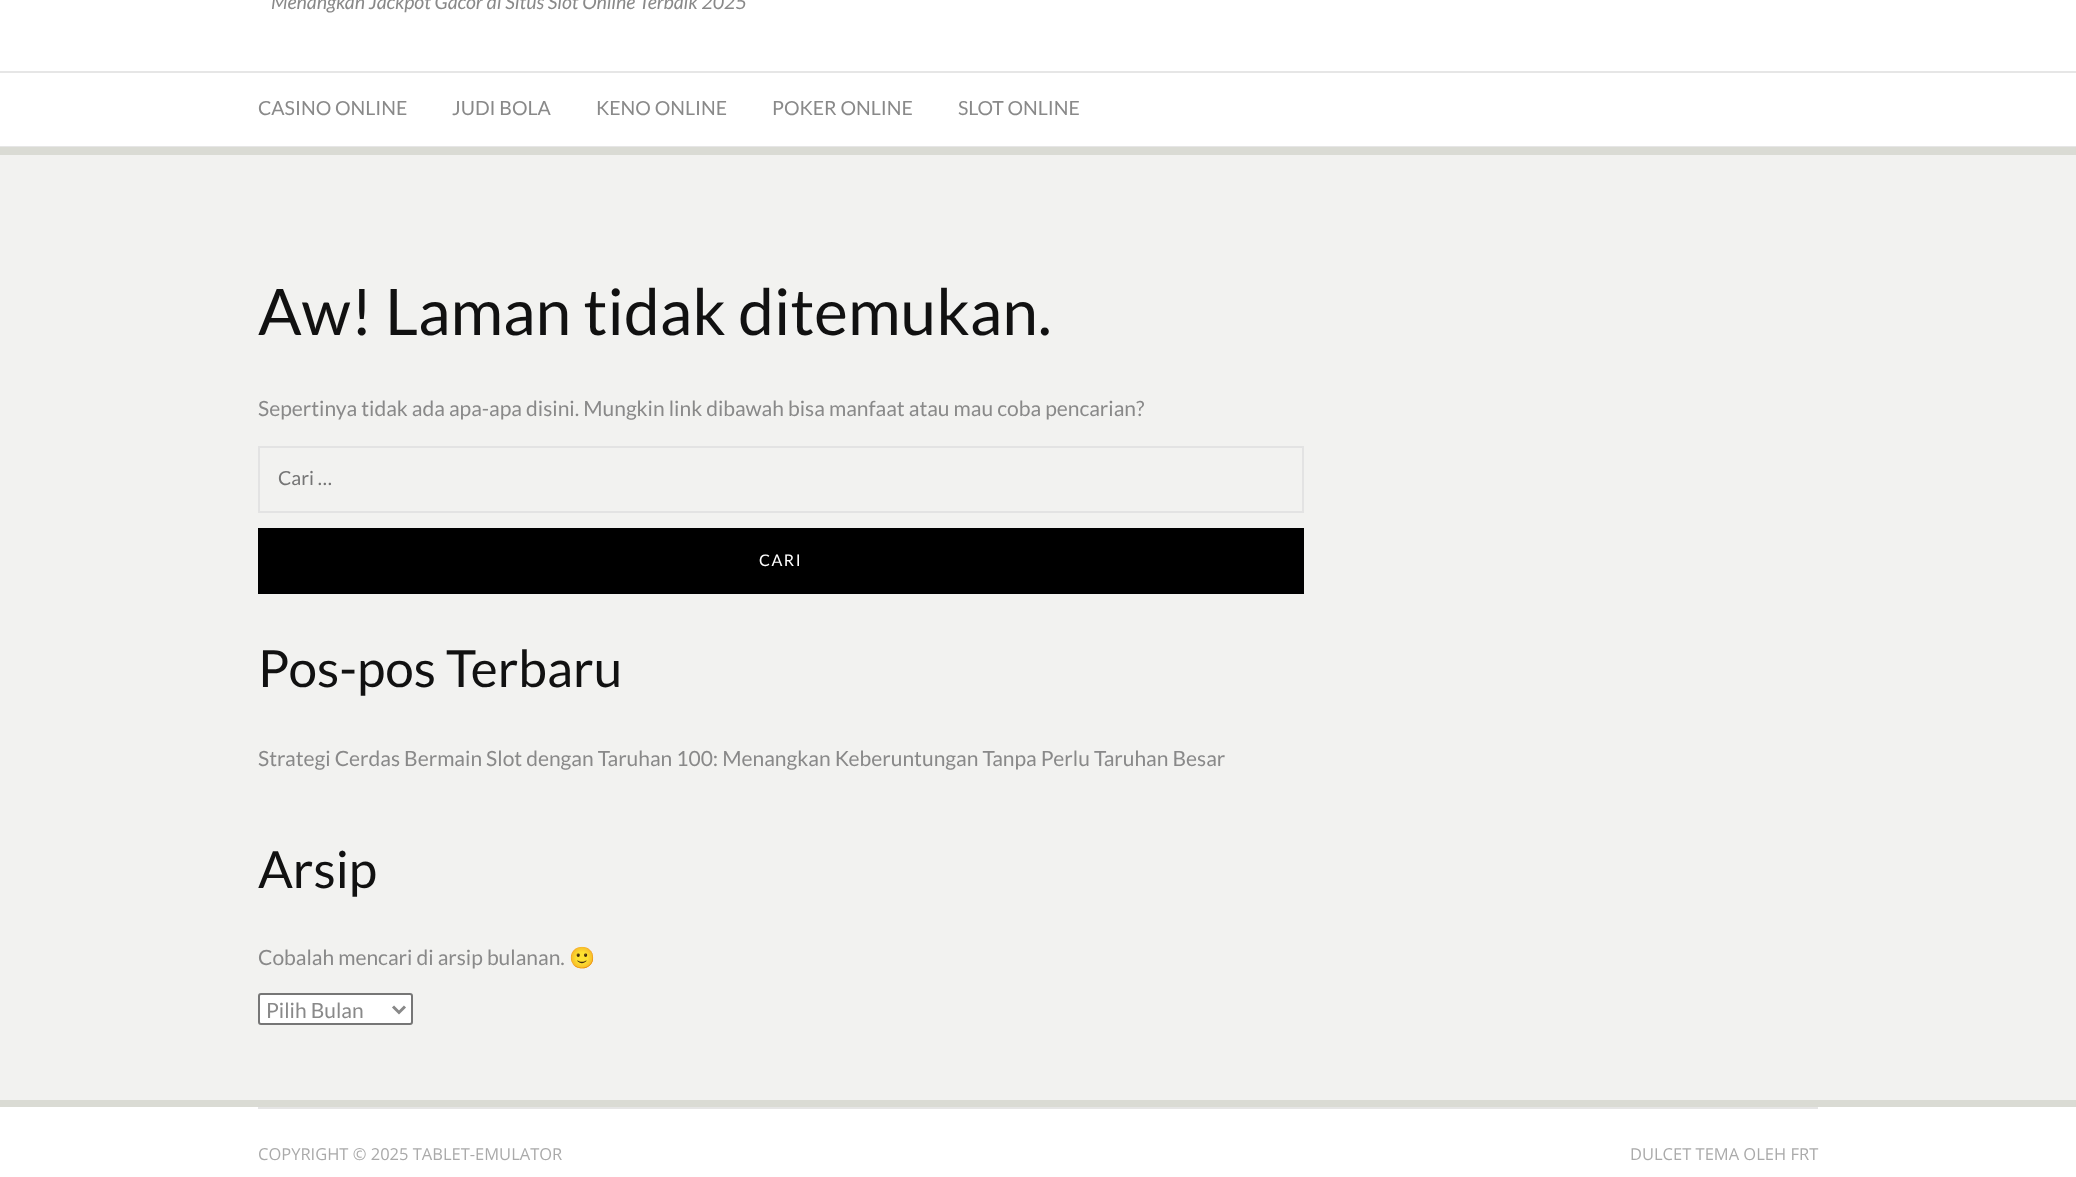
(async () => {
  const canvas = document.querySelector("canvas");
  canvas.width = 2076;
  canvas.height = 1177;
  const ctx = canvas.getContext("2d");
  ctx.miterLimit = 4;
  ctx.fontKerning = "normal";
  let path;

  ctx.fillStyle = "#ffffff";
  ctx.fillRect(0, 0, 2076, 1177);
  for (const [x, y, w, h, color] of [
    [0, 71, 2076, 2, "#e6e6e6"],
    [0, 146, 2076, 1, "#e6e6e6"],
    [0, 155, 2076, 945, "#f2f2f0"],
    [0, 147, 2076, 8, "#dadbd4"],
    [0, 1100, 2076, 7, "#dadbd4"],
  ]) {
    ctx.fillStyle = color;
    ctx.fillRect(x, y, w, h);
  }
  ctx.strokeStyle = "#e3e3e3";
  ctx.lineWidth = 2;
  ctx.strokeRect(259, 447, 1044, 65);
  ctx.fillStyle = "#000000";
  ctx.fillRect(258, 528, 1046, 66);
  ctx.fillStyle = "#ffffff";
  ctx.beginPath();
  ctx.roundRect(259, 994, 153, 30, 2);
  ctx.fill();
  ctx.strokeStyle = "#767676";
  ctx.stroke();
  path = new Path2D("M393 1006.5L399 1012.5L405 1006.5");
  ctx.strokeStyle = "#898989";
  ctx.lineWidth = 3;
  ctx.stroke(path);
  ctx.fillStyle = "#e5e5e5";
  ctx.fillRect(258, 1107, 1560, 2);
  ctx.font = "italic 19.5px Lato";
  ctx.fillStyle = "#898989";
  ctx.fillText("Menangkan Jackpot Gacor di Situs Slot Online Terbaik 2025", 271, 9);
  ctx.font = "19.5px Lato";
  for (const [text, x, y] of [
    ["CASINO ONLINE", 258, 115],
    ["JUDI BOLA", 452, 115],
    ["KENO ONLINE", 596, 115],
    ["POKER ONLINE", 772, 115],
    ["SLOT ONLINE", 958, 115],
  ]) {
    ctx.fillText(text, x, y);
  }
  ctx.font = "64.1px Lato";
  ctx.fillStyle = "#111111";
  ctx.fillText("Aw! Laman tidak ditemukan.", 258, 335);
  ctx.font = "21px Lato";
  ctx.fillStyle = "#898989";
  ctx.fillText("Sepertinya tidak ada apa-apa disini. Mungkin link dibawah bisa manfaat atau mau coba pencarian?", 258, 416);
  ctx.font = "19.5px Lato";
  ctx.fillStyle = "#757575";
  ctx.fillText("Cari …", 278, 485);
  ctx.letterSpacing = "1.5px";
  ctx.font = "16px Lato";
  ctx.fillStyle = "#ffffff";
  ctx.fillText("CARI", 759, 566);
  ctx.letterSpacing = "0px";
  ctx.font = "51.25px Lato";
  ctx.fillStyle = "#111111";
  ctx.fillText("Pos-pos Terbaru", 258, 687);
  ctx.font = "21px Lato";
  ctx.fillStyle = "#898989";
  ctx.fillText("Strategi Cerdas Bermain Slot dengan Taruhan 100: Menangkan Keberuntungan Tanpa Perlu Taruhan Besar", 258, 766);
  ctx.font = "51.25px Lato";
  ctx.fillStyle = "#111111";
  ctx.fillText("Arsip", 258, 888);
  ctx.font = "21px Lato";
  ctx.fillStyle = "#898989";
  ctx.fillText("Cobalah mencari di arsip bulanan.", 258, 965);
  ctx.font = "21px Noto Color Emoji";
  ctx.fillText("🙂", 569, 965);
  ctx.font = "21px Lato";
  ctx.fillText("Pilih Bulan", 266, 1018);
  ctx.font = "16.5px Open Sans";
  ctx.fillStyle = "#aaaaaa";
  ctx.fillText("COPYRIGHT © 2025 TABLET-EMULATOR", 258, 1160);
  ctx.fillText("DULCET TEMA OLEH FRT", 1630, 1160);
})();
